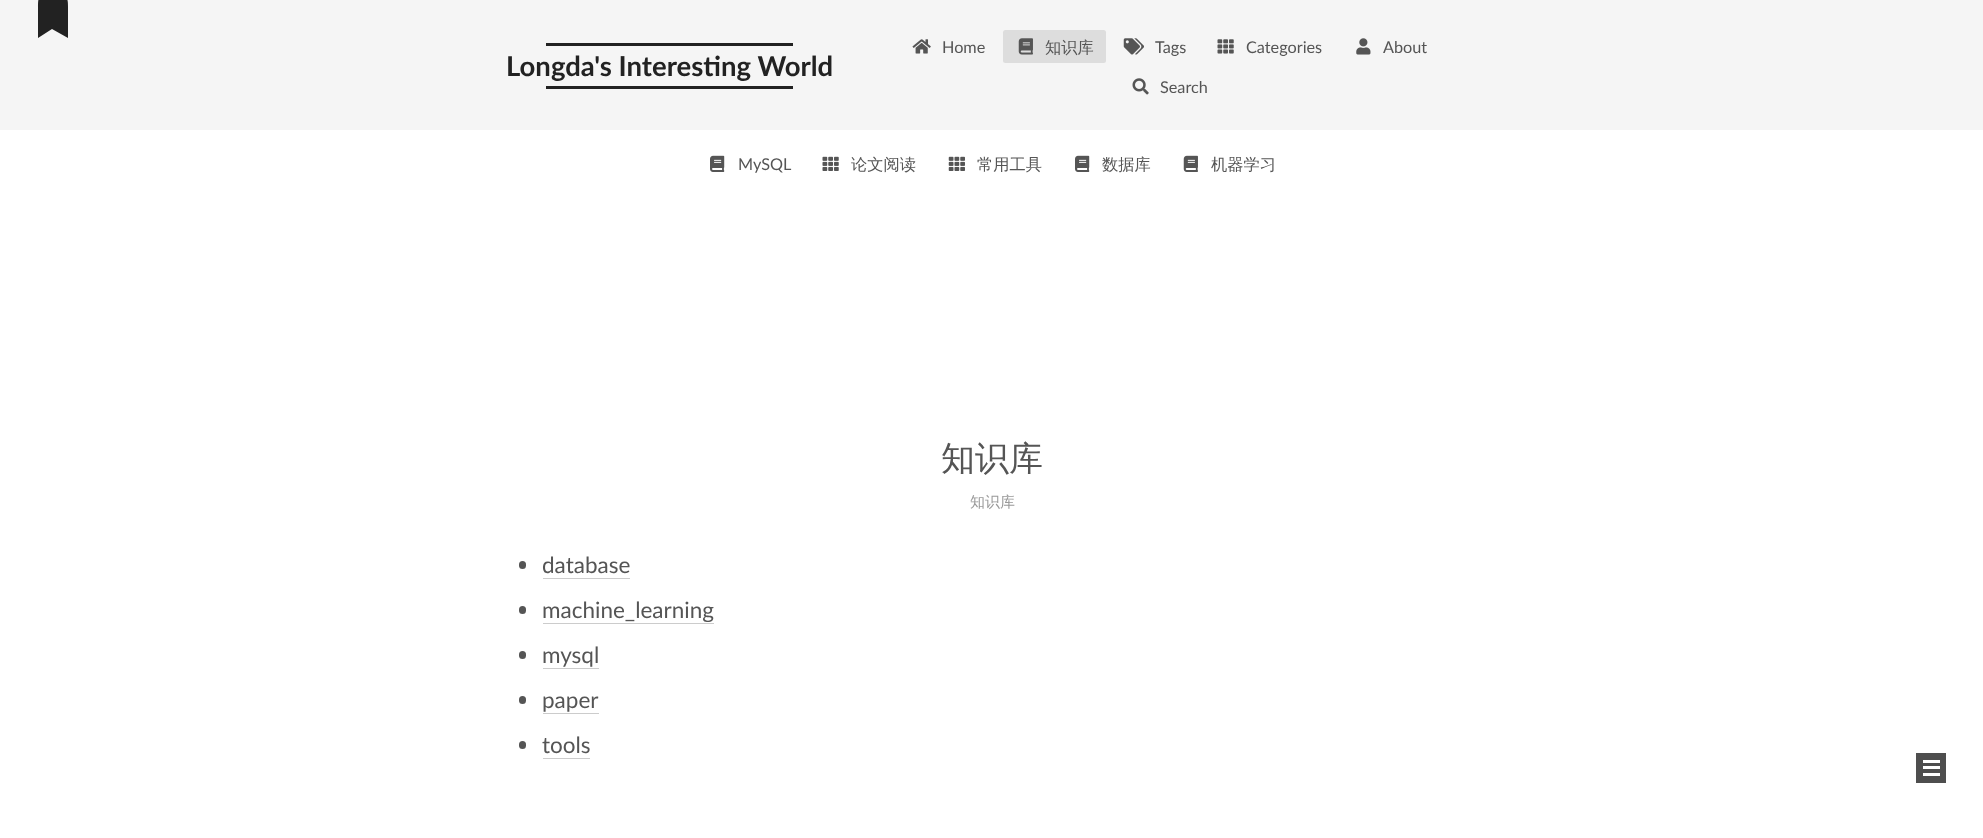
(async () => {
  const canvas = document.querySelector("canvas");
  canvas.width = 1983;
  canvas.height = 838;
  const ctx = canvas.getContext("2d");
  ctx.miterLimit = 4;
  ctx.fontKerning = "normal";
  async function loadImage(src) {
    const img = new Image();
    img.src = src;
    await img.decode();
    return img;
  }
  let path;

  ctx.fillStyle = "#ffffff";
  ctx.fillRect(0, 0, 1983, 838);
  ctx.fillStyle = "#f5f5f5";
  ctx.fillRect(0, 0, 1983, 130);
  ctx.fillStyle = "#222222";
  path = new Path2D("M38 38V7C38-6 39-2 52-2C66-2 68-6 68 7V38L52 29Z");
  ctx.fill(path);
  ctx.fillRect(546, 43, 247, 3);
  ctx.fillRect(546, 86, 247, 3);
  ctx.drawImage(await loadImage("img/1.png"), 912, 39, 19, 15);
  ctx.fillStyle = "#dddddd";
  ctx.beginPath();
  ctx.roundRect(1003, 30, 103, 33, 2.5);
  ctx.fill();
  ctx.drawImage(await loadImage("img/2.png"), 1018, 38, 15, 17);
  ctx.drawImage(await loadImage("img/3.png"), 1123, 38, 21, 17);
  ctx.drawImage(await loadImage("img/4.png"), 1217, 39, 17, 15);
  ctx.drawImage(await loadImage("img/5.png"), 1356, 38, 15, 17);
  ctx.drawImage(await loadImage("img/6.png"), 1132, 78, 17, 17);
  for (const [x, y, w, h, color] of [
    [1916, 753, 30, 30, "#4e4e4e"],
    [1923, 760, 17, 3, "#ffffff"],
    [1923, 766, 17, 3, "#ffffff"],
    [1923, 773, 17, 3, "#ffffff"],
  ]) {
    ctx.fillStyle = color;
    ctx.fillRect(x, y, w, h);
  }
  ctx.drawImage(await loadImage("img/7.png"), 710, 155, 15, 17);
  ctx.drawImage(await loadImage("img/8.png"), 822, 156, 17, 15);
  ctx.drawImage(await loadImage("img/9.png"), 948, 156, 17, 15);
  ctx.drawImage(await loadImage("img/7.png"), 1075, 155, 15, 17);
  ctx.drawImage(await loadImage("img/10.png"), 1183, 155, 15, 17);
  ctx.fillStyle = "#555555";
  ctx.beginPath();
  ctx.roundRect(519, 561, 7, 8, 3.5);
  ctx.fill();
  ctx.fillStyle = "#cccccc";
  ctx.fillRect(543, 578, 87, 1);
  ctx.fillStyle = "#555555";
  ctx.beginPath();
  ctx.roundRect(519, 606, 7, 8, 3.5);
  ctx.fill();
  ctx.fillStyle = "#cccccc";
  ctx.fillRect(543, 623, 171, 1);
  ctx.fillStyle = "#555555";
  ctx.beginPath();
  ctx.roundRect(519, 651, 7, 8, 3.5);
  ctx.fill();
  ctx.fillStyle = "#cccccc";
  ctx.fillRect(543, 668, 56, 1);
  ctx.fillStyle = "#555555";
  ctx.beginPath();
  ctx.roundRect(519, 696, 7, 8, 3.5);
  ctx.fill();
  ctx.fillStyle = "#cccccc";
  ctx.fillRect(543, 713, 56, 1);
  ctx.fillStyle = "#555555";
  ctx.beginPath();
  ctx.roundRect(519, 741, 7, 8, 3.5);
  ctx.fill();
  ctx.fillStyle = "#cccccc";
  ctx.fillRect(543, 758, 47, 1);
  ctx.font = "bold 27.5px Lato";
  ctx.fillStyle = "#222222";
  ctx.fillText("Longda's Interesting World", 506, 76);
  ctx.font = "16.25px Lato";
  ctx.fillStyle = "#555555";
  ctx.fillText("Home", 942, 53);
  ctx.font = "500 16.25px WenQuanYi Zen Hei";
  ctx.fillText("知识库", 1045, 53);
  ctx.font = "16.25px Lato";
  for (const [text, x, y] of [
    ["Tags", 1155, 53],
    ["Categories", 1246, 53],
    ["About", 1383, 53],
    ["Search", 1160, 93],
    ["MySQL", 738, 170],
  ]) {
    ctx.fillText(text, x, y);
  }
  ctx.font = "500 16.25px WenQuanYi Zen Hei";
  for (const [text, x, y] of [
    ["论文阅读", 851, 170],
    ["常用工具", 977, 170],
    ["数据库", 1102, 170],
    ["机器学习", 1211, 170],
  ]) {
    ctx.fillText(text, x, y);
  }
  ctx.font = "500 34px WenQuanYi Zen Hei";
  ctx.fillText("知识库", 941, 470);
  ctx.font = "500 15px WenQuanYi Zen Hei";
  ctx.fillStyle = "#999999";
  ctx.fillText("知识库", 970, 507);
  ctx.font = "22.5px Lato";
  ctx.fillStyle = "#555555";
  for (const [text, x, y] of [
    ["database", 542, 573],
    ["machine_learning", 542, 618],
    ["mysql", 542, 663],
    ["paper", 542, 708],
    ["tools", 542, 753],
  ]) {
    ctx.fillText(text, x, y);
  }
})();
